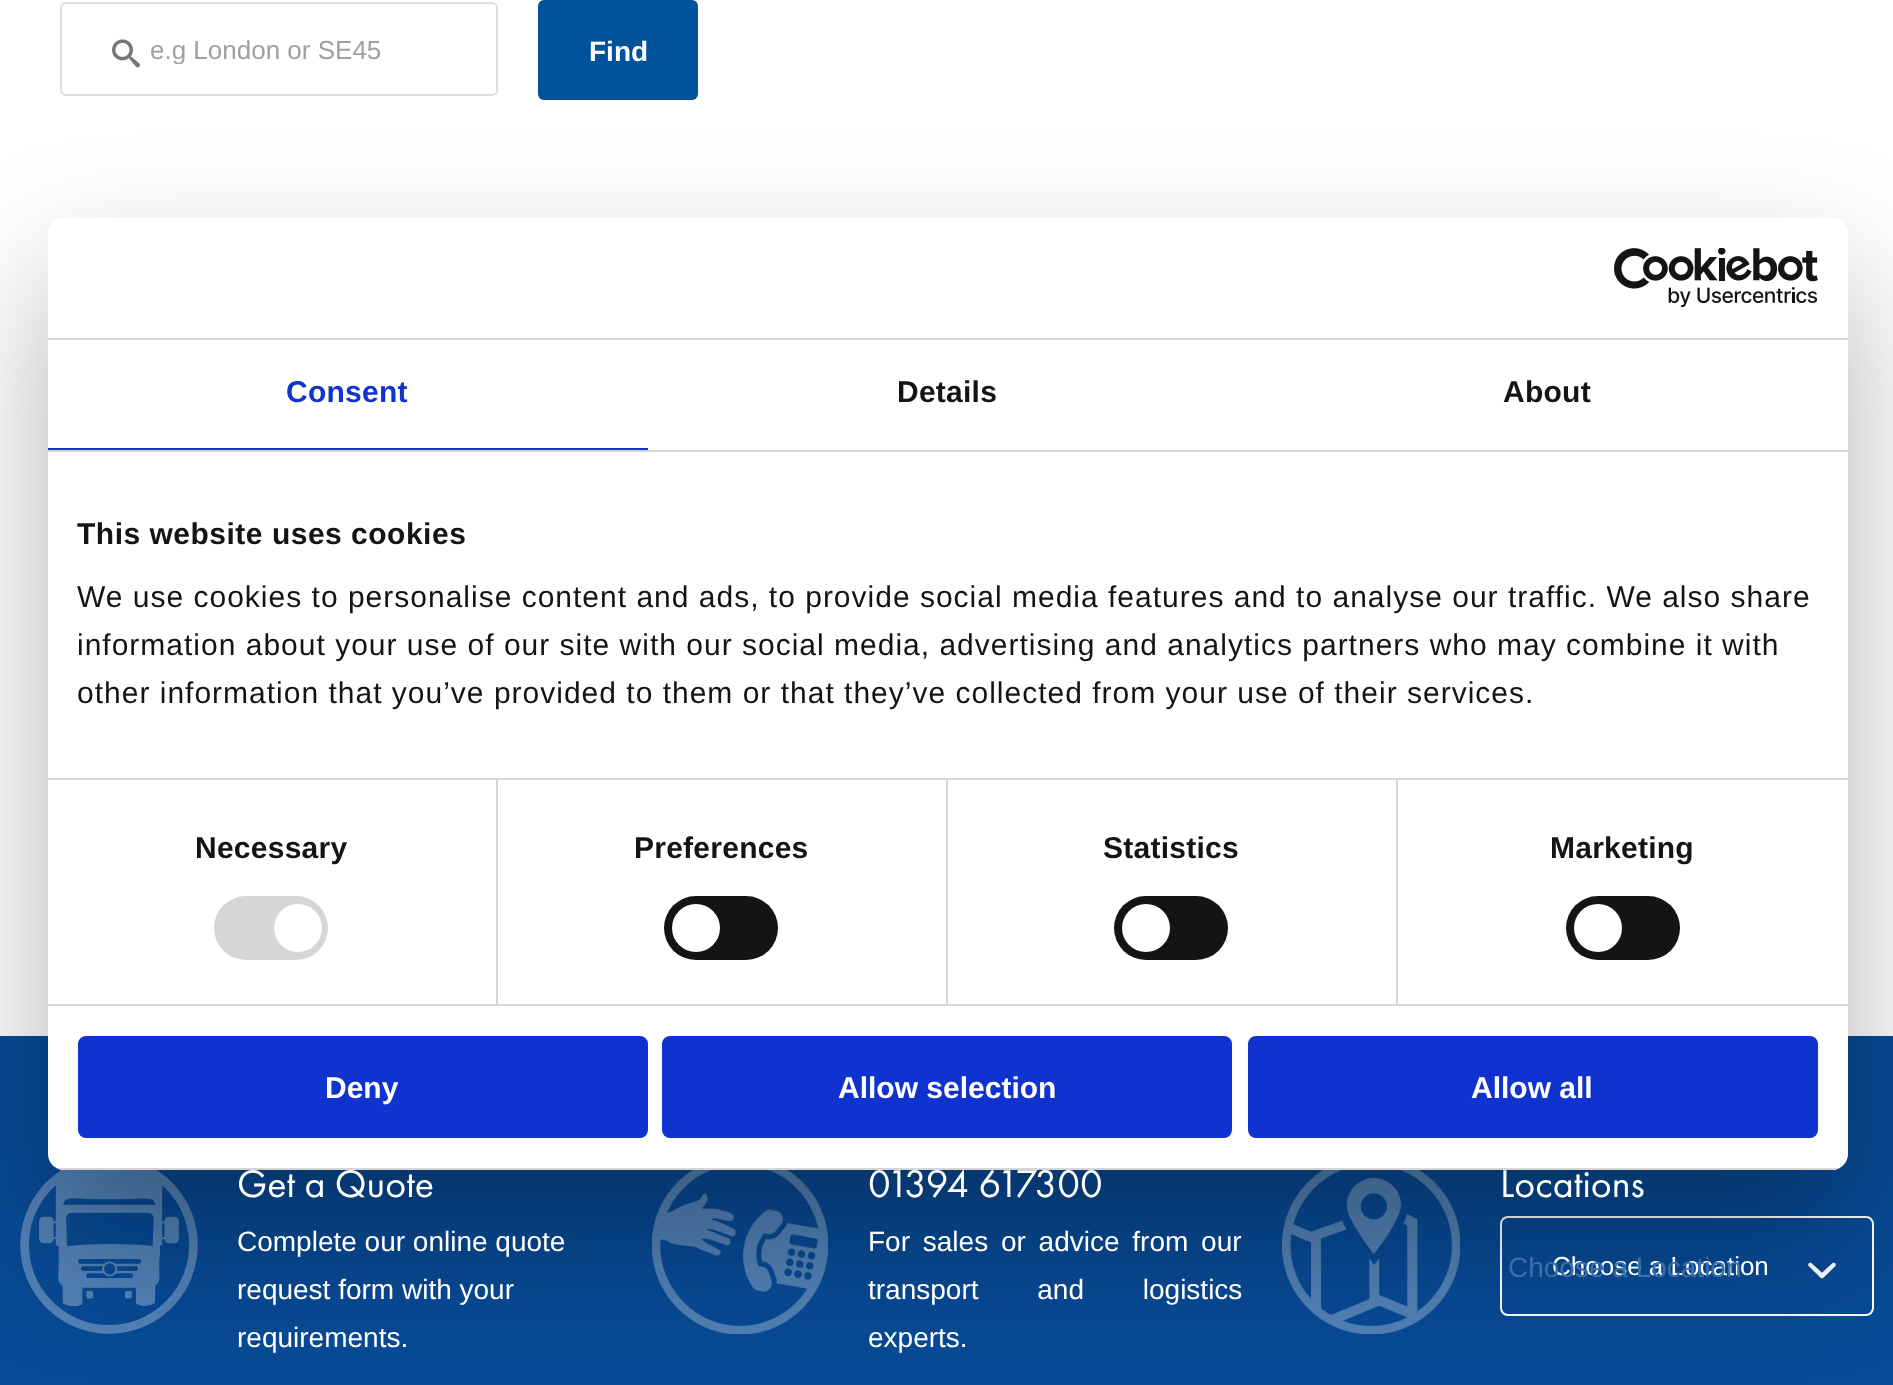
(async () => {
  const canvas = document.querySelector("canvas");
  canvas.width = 1893;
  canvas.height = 1385;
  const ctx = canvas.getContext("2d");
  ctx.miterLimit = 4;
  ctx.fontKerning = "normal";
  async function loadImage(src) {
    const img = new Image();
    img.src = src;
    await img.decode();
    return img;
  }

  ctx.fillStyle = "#084a95";
  ctx.fillRect(0, 0, 1893, 1385);
  ctx.fillStyle = "#ffffff";
  ctx.fillRect(0, 0, 1893, 1036);
  ctx.beginPath();
  ctx.roundRect(61, 3, 436, 92, 5);
  ctx.strokeStyle = "#dddddd";
  ctx.lineWidth = 2;
  ctx.stroke();
  ctx.drawImage(await loadImage("img/1.png"), 112, 39, 28, 29);
  ctx.fillStyle = "#00529b";
  ctx.beginPath();
  ctx.roundRect(538, 0, 160, 100, 6);
  ctx.fill();
  ctx.drawImage(await loadImage("img/2.png"), 20, 1169, 178, 165);
  ctx.drawImage(await loadImage("img/3.png"), 652, 1170, 176, 164);
  ctx.drawImage(await loadImage("img/4.png"), 1282, 1170, 178, 164);
  ctx.beginPath();
  ctx.roundRect(1501, 1217, 372, 98, 7);
  ctx.strokeStyle = "#ffffff";
  ctx.stroke();
  ctx.drawImage(await loadImage("img/5.png"), 1808, 1262, 28, 17);
  ctx.fillStyle = "rgba(0, 0, 0, 0.3)";
  ctx.filter = "blur(68px)";
  ctx.beginPath();
  ctx.roundRect(48, 282, 1800, 952, 16);
  ctx.fill();
  ctx.filter = "none";
  ctx.fillStyle = "#ffffff";
  ctx.beginPath();
  ctx.roundRect(48, 218, 1800, 952, 16);
  ctx.fill();
  ctx.fillStyle = "#d6d6d6";
  ctx.fillRect(48, 338, 1800, 2);
  ctx.drawImage(await loadImage("img/6.png"), 1614, 248, 204, 60);
  for (const [x, y, w, h, color] of [
    [48, 450, 1800, 2, "#d6d6d6"],
    [48, 448, 600, 2, "#1032cf"],
    [48, 778, 1800, 2, "#d6d6d6"],
    [48, 1004, 1800, 2, "#d6d6d6"],
    [496, 780, 2, 224, "#d6d6d6"],
  ]) {
    ctx.fillStyle = color;
    ctx.fillRect(x, y, w, h);
  }
  ctx.beginPath();
  ctx.roundRect(214, 896, 114, 64, 32);
  ctx.fill();
  ctx.fillStyle = "#ffffff";
  ctx.beginPath();
  ctx.arc(298, 928, 24, 0, Math.PI * 2);
  ctx.fill();
  ctx.fillStyle = "#d6d6d6";
  ctx.fillRect(946, 780, 2, 224);
  ctx.fillStyle = "#141414";
  ctx.beginPath();
  ctx.roundRect(664, 896, 114, 64, 32);
  ctx.fill();
  ctx.fillStyle = "#ffffff";
  ctx.beginPath();
  ctx.arc(696, 928, 24, 0, Math.PI * 2);
  ctx.fill();
  ctx.fillStyle = "#d6d6d6";
  ctx.fillRect(1396, 780, 2, 224);
  ctx.fillStyle = "#141414";
  ctx.beginPath();
  ctx.roundRect(1114, 896, 114, 64, 32);
  ctx.fill();
  ctx.fillStyle = "#ffffff";
  ctx.beginPath();
  ctx.arc(1146, 928, 24, 0, Math.PI * 2);
  ctx.fill();
  ctx.fillStyle = "#141414";
  ctx.beginPath();
  ctx.roundRect(1566, 896, 114, 64, 32);
  ctx.fill();
  ctx.fillStyle = "#ffffff";
  ctx.beginPath();
  ctx.arc(1598, 928, 24, 0, Math.PI * 2);
  ctx.fill();
  ctx.fillStyle = "#1032cf";
  ctx.beginPath();
  ctx.roundRect(80, 1038, 566, 98, 6);
  ctx.fill();
  ctx.strokeStyle = "#1032cf";
  ctx.lineWidth = 4;
  ctx.stroke();
  ctx.beginPath();
  ctx.roundRect(664, 1038, 566, 98, 6);
  ctx.fill();
  ctx.stroke();
  ctx.beginPath();
  ctx.roundRect(1250, 1038, 566, 98, 6);
  ctx.fill();
  ctx.stroke();
  ctx.save();
  ctx.beginPath();
  ctx.rect(150, 34, 286, 30);
  ctx.clip();
  ctx.font = "26px Liberation Sans";
  ctx.fillStyle = "#a0a0a0";
  ctx.fillText("e.g London or SE45", 150, 59);
  ctx.restore();
  ctx.font = "bold 28px Liberation Sans";
  ctx.fillStyle = "#ffffff";
  ctx.fillText("Find", 589, 61);
  ctx.font = "40px Futura PT";
  ctx.fillText("Get a Quote", 237, 1197);
  ctx.font = "28px Liberation Sans";
  for (const [text, x, y] of [
    ["Complete our online quote", 237, 1251],
    ["request form with your", 237, 1299],
    ["requirements.", 237, 1347],
  ]) {
    ctx.fillText(text, x, y);
  }
  ctx.font = "40px Futura PT";
  ctx.fillText("01394 617300", 868, 1197);
  ctx.wordSpacing = "5px";
  ctx.font = "28px Liberation Sans";
  ctx.fillText("For sales or advice from our", 868, 1251);
  ctx.wordSpacing = "51px";
  ctx.fillText("transport and logistics", 868, 1299);
  ctx.wordSpacing = "0px";
  ctx.fillText("experts.", 868, 1347);
  ctx.font = "40px Futura PT";
  ctx.fillText("Locations", 1500, 1197);
  ctx.font = "26px Liberation Sans";
  ctx.fillText("Choose a Location", 1552, 1275);
  ctx.font = "28px Liberation Sans";
  ctx.fillStyle = "#3a6faa";
  ctx.fillText("Choose a Location", 1508, 1277);
  ctx.letterSpacing = "0.25px";
  ctx.font = "bold 30px Liberation Sans";
  ctx.fillStyle = "#1032cf";
  ctx.fillText("Consent", 286, 402);
  ctx.fillStyle = "#141414";
  ctx.fillText("Details", 897, 402);
  ctx.fillText("About", 1503, 402);
  ctx.letterSpacing = "0.5px";
  ctx.fillText("This website uses cookies", 77, 544);
  ctx.letterSpacing = "1px";
  ctx.font = "30px Liberation Sans";
  for (const [text, x, y] of [
    ["We use cookies to personalise content and ads, to provide social media features and to analyse our traffic. We also share", 77, 607],
    ["information about your use of our site with our social media, advertising and analytics partners who may combine it with", 77, 655],
    ["other information that you’ve provided to them or that they’ve collected from your use of their services.", 77, 703],
  ]) {
    ctx.fillText(text, x, y);
  }
  ctx.letterSpacing = "0.25px";
  ctx.font = "bold 30px Liberation Sans";
  for (const [text, x, y] of [
    ["Necessary", 195, 858],
    ["Preferences", 634, 858],
    ["Statistics", 1103, 858],
    ["Marketing", 1550, 858],
  ]) {
    ctx.fillText(text, x, y);
  }
  ctx.save();
  ctx.beginPath();
  ctx.roundRect(48, 218, 1800, 952, 16);
  ctx.clip();
  ctx.fillStyle = "#d6d6d6";
  ctx.fillRect(48, 1168, 1800, 2);
  ctx.restore();
  ctx.letterSpacing = "0px";
  ctx.fillStyle = "#ffffff";
  for (const [text, x, y] of [
    ["Deny", 325, 1098],
    ["Allow selection", 838, 1098],
    ["Allow all", 1471, 1098],
  ]) {
    ctx.fillText(text, x, y);
  }
})();
